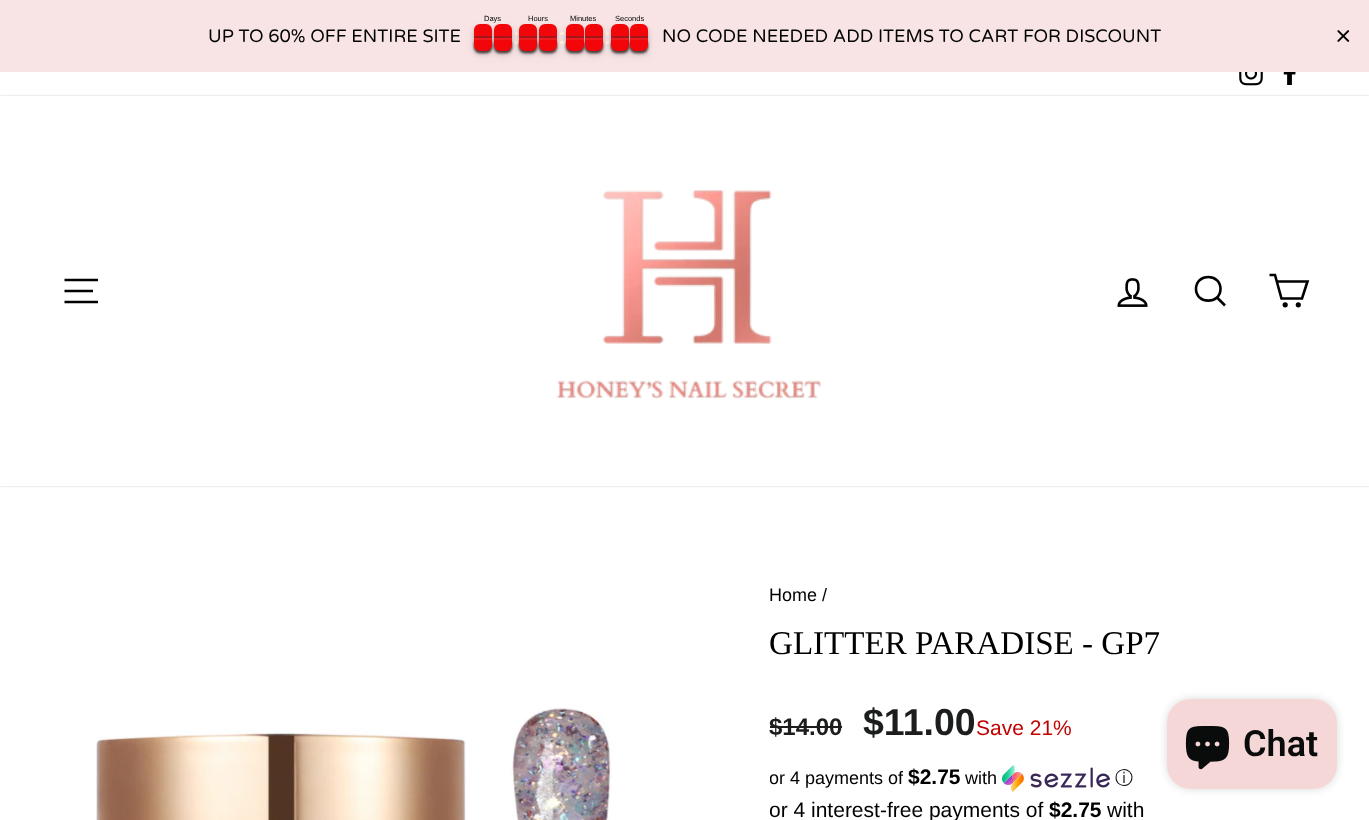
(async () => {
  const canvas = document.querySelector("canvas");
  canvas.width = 1369;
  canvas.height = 820;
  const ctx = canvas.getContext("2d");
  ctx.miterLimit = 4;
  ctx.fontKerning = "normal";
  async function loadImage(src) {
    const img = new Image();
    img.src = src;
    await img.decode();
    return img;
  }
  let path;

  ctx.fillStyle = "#ffffff";
  ctx.fillRect(0, 0, 1369, 820);
  ctx.fillStyle = "#f8e4e4";
  ctx.fillRect(0, 0, 1369, 72);
  ctx.fillStyle = "rgba(0, 0, 0, 0.05)";
  ctx.filter = "blur(6px)";
  ctx.beginPath();
  ctx.roundRect(474, 29, 18, 27, 6);
  ctx.fill();
  ctx.filter = "none";
  ctx.fillStyle = "rgba(0, 0, 0, 0.24)";
  ctx.filter = "blur(2px)";
  ctx.beginPath();
  ctx.roundRect(474, 27, 18, 27, 6);
  ctx.fill();
  ctx.filter = "none";
  ctx.fillStyle = "rgba(0, 0, 0, 0.4)";
  ctx.filter = "blur(1px)";
  ctx.beginPath();
  ctx.roundRect(474, 39, 18, 14, 6);
  ctx.fill();
  ctx.filter = "none";
  ctx.fillStyle = "rgba(0, 0, 0, 0.05)";
  ctx.filter = "blur(6px)";
  ctx.beginPath();
  ctx.roundRect(494, 29, 18, 27, 6);
  ctx.fill();
  ctx.filter = "none";
  ctx.fillStyle = "rgba(0, 0, 0, 0.24)";
  ctx.filter = "blur(2px)";
  ctx.beginPath();
  ctx.roundRect(494, 27, 18, 27, 6);
  ctx.fill();
  ctx.filter = "none";
  ctx.fillStyle = "#fff3d9";
  ctx.beginPath();
  ctx.arc(516.5, 42.5, 1.5, 0, Math.PI * 2);
  ctx.fill();
  ctx.fillStyle = "rgba(0, 0, 0, 0.4)";
  ctx.filter = "blur(1px)";
  ctx.beginPath();
  ctx.roundRect(494, 39, 18, 14, 6);
  ctx.fill();
  ctx.filter = "none";
  ctx.fillStyle = "#f2060a";
  ctx.beginPath();
  ctx.roundRect(474, 24, 18, 14, [6, 6, 0, 0]);
  ctx.fill();
  ctx.fillStyle = "rgba(51, 51, 51, 0.4)";
  ctx.fillRect(474, 36, 18, 2);
  ctx.fillStyle = "rgba(0, 0, 0, 0.4)";
  ctx.filter = "blur(1px)";
  ctx.beginPath();
  ctx.roundRect(474, 39, 18, 14, 6);
  ctx.fill();
  ctx.filter = "none";
  ctx.fillStyle = "#f2060a";
  ctx.beginPath();
  ctx.roundRect(474, 38, 18, 13, [0, 0, 6, 6]);
  ctx.fill();
  ctx.fillStyle = "rgba(204, 204, 204, 0.1)";
  ctx.fillRect(474, 38, 18, 2);
  ctx.fillStyle = "#fff3d9";
  ctx.beginPath();
  ctx.arc(516.5, 33.5, 1.5, 0, Math.PI * 2);
  ctx.fill();
  ctx.fillStyle = "rgba(0, 0, 0, 0.05)";
  ctx.filter = "blur(6px)";
  ctx.beginPath();
  ctx.roundRect(519, 29, 18, 27, 6);
  ctx.fill();
  ctx.filter = "none";
  ctx.fillStyle = "#f2060a";
  ctx.beginPath();
  ctx.roundRect(494, 24, 18, 14, [6, 6, 0, 0]);
  ctx.fill();
  ctx.fillStyle = "rgba(51, 51, 51, 0.4)";
  ctx.fillRect(494, 36, 18, 2);
  ctx.fillStyle = "rgba(0, 0, 0, 0.4)";
  ctx.filter = "blur(1px)";
  ctx.beginPath();
  ctx.roundRect(494, 39, 18, 14, 6);
  ctx.fill();
  ctx.filter = "none";
  ctx.fillStyle = "#f2060a";
  ctx.beginPath();
  ctx.roundRect(494, 38, 18, 13, [0, 0, 6, 6]);
  ctx.fill();
  ctx.fillStyle = "rgba(204, 204, 204, 0.1)";
  ctx.fillRect(494, 38, 18, 2);
  ctx.fillStyle = "rgba(0, 0, 0, 0.24)";
  ctx.filter = "blur(2px)";
  ctx.beginPath();
  ctx.roundRect(519, 27, 18, 27, 6);
  ctx.fill();
  ctx.filter = "none";
  ctx.fillStyle = "rgba(0, 0, 0, 0.4)";
  ctx.filter = "blur(1px)";
  ctx.beginPath();
  ctx.roundRect(519, 39, 18, 14, 6);
  ctx.fill();
  ctx.filter = "none";
  ctx.fillStyle = "rgba(0, 0, 0, 0.05)";
  ctx.filter = "blur(6px)";
  ctx.beginPath();
  ctx.roundRect(539, 29, 18, 27, 6);
  ctx.fill();
  ctx.filter = "none";
  ctx.fillStyle = "rgba(0, 0, 0, 0.24)";
  ctx.filter = "blur(2px)";
  ctx.beginPath();
  ctx.roundRect(539, 27, 18, 27, 6);
  ctx.fill();
  ctx.filter = "none";
  ctx.fillStyle = "#fff3d9";
  ctx.beginPath();
  ctx.roundRect(560, 41, 5, 3, 1.5);
  ctx.fill();
  ctx.fillStyle = "rgba(0, 0, 0, 0.4)";
  ctx.filter = "blur(1px)";
  ctx.beginPath();
  ctx.roundRect(539, 39, 18, 14, 6);
  ctx.fill();
  ctx.filter = "none";
  ctx.fillStyle = "#f2060a";
  ctx.beginPath();
  ctx.roundRect(519, 24, 18, 14, [6, 6, 0, 0]);
  ctx.fill();
  ctx.fillStyle = "rgba(51, 51, 51, 0.4)";
  ctx.fillRect(519, 36, 18, 2);
  ctx.fillStyle = "rgba(0, 0, 0, 0.4)";
  ctx.filter = "blur(1px)";
  ctx.beginPath();
  ctx.roundRect(519, 39, 18, 14, 6);
  ctx.fill();
  ctx.filter = "none";
  ctx.fillStyle = "#f2060a";
  ctx.beginPath();
  ctx.roundRect(519, 38, 18, 13, [0, 0, 6, 6]);
  ctx.fill();
  ctx.fillStyle = "rgba(204, 204, 204, 0.1)";
  ctx.fillRect(519, 38, 18, 2);
  ctx.fillStyle = "#fff3d9";
  ctx.beginPath();
  ctx.roundRect(560, 32, 5, 3, 1.5);
  ctx.fill();
  ctx.fillStyle = "rgba(0, 0, 0, 0.05)";
  ctx.filter = "blur(6px)";
  ctx.beginPath();
  ctx.roundRect(566, 29, 18, 27, 6);
  ctx.fill();
  ctx.filter = "none";
  ctx.fillStyle = "#f2060a";
  ctx.beginPath();
  ctx.roundRect(539, 24, 18, 14, [6, 6, 0, 0]);
  ctx.fill();
  ctx.fillStyle = "rgba(51, 51, 51, 0.4)";
  ctx.fillRect(539, 36, 18, 2);
  ctx.fillStyle = "rgba(0, 0, 0, 0.4)";
  ctx.filter = "blur(1px)";
  ctx.beginPath();
  ctx.roundRect(539, 39, 18, 14, 6);
  ctx.fill();
  ctx.filter = "none";
  ctx.fillStyle = "#f2060a";
  ctx.beginPath();
  ctx.roundRect(539, 38, 18, 13, [0, 0, 6, 6]);
  ctx.fill();
  ctx.fillStyle = "rgba(204, 204, 204, 0.1)";
  ctx.fillRect(539, 38, 18, 2);
  ctx.fillStyle = "rgba(0, 0, 0, 0.24)";
  ctx.filter = "blur(2px)";
  ctx.beginPath();
  ctx.roundRect(566, 27, 18, 27, 6);
  ctx.fill();
  ctx.filter = "none";
  ctx.fillStyle = "rgba(0, 0, 0, 0.4)";
  ctx.filter = "blur(1px)";
  ctx.beginPath();
  ctx.roundRect(566, 39, 18, 14, 6);
  ctx.fill();
  ctx.filter = "none";
  ctx.fillStyle = "rgba(0, 0, 0, 0.05)";
  ctx.filter = "blur(6px)";
  ctx.beginPath();
  ctx.roundRect(585, 29, 18, 27, 6);
  ctx.fill();
  ctx.filter = "none";
  ctx.fillStyle = "rgba(0, 0, 0, 0.24)";
  ctx.filter = "blur(2px)";
  ctx.beginPath();
  ctx.roundRect(585, 27, 18, 27, 6);
  ctx.fill();
  ctx.filter = "none";
  ctx.fillStyle = "#fff3d9";
  ctx.beginPath();
  ctx.arc(607.5, 42.5, 1.5, 0, Math.PI * 2);
  ctx.fill();
  ctx.fillStyle = "rgba(0, 0, 0, 0.4)";
  ctx.filter = "blur(1px)";
  ctx.beginPath();
  ctx.roundRect(585, 39, 18, 14, 6);
  ctx.fill();
  ctx.filter = "none";
  ctx.fillStyle = "#f2060a";
  ctx.beginPath();
  ctx.roundRect(566, 24, 18, 14, [6, 6, 0, 0]);
  ctx.fill();
  ctx.fillStyle = "rgba(51, 51, 51, 0.4)";
  ctx.fillRect(566, 36, 18, 2);
  ctx.fillStyle = "rgba(0, 0, 0, 0.4)";
  ctx.filter = "blur(1px)";
  ctx.beginPath();
  ctx.roundRect(566, 39, 18, 14, 6);
  ctx.fill();
  ctx.filter = "none";
  ctx.fillStyle = "#f2060a";
  ctx.beginPath();
  ctx.roundRect(566, 38, 18, 13, [0, 0, 6, 6]);
  ctx.fill();
  ctx.fillStyle = "rgba(204, 204, 204, 0.1)";
  ctx.fillRect(566, 38, 18, 2);
  ctx.fillStyle = "#fff3d9";
  ctx.beginPath();
  ctx.arc(607.5, 33.5, 1.5, 0, Math.PI * 2);
  ctx.fill();
  ctx.fillStyle = "rgba(0, 0, 0, 0.05)";
  ctx.filter = "blur(6px)";
  ctx.beginPath();
  ctx.roundRect(611, 29, 18, 27, 6);
  ctx.fill();
  ctx.filter = "none";
  ctx.fillStyle = "#f2060a";
  ctx.beginPath();
  ctx.roundRect(585, 24, 18, 14, [6, 6, 0, 0]);
  ctx.fill();
  ctx.fillStyle = "rgba(51, 51, 51, 0.4)";
  ctx.fillRect(585, 36, 18, 2);
  ctx.fillStyle = "rgba(0, 0, 0, 0.4)";
  ctx.filter = "blur(1px)";
  ctx.beginPath();
  ctx.roundRect(585, 39, 18, 14, 6);
  ctx.fill();
  ctx.filter = "none";
  ctx.fillStyle = "#f2060a";
  ctx.beginPath();
  ctx.roundRect(585, 38, 18, 13, [0, 0, 6, 6]);
  ctx.fill();
  ctx.fillStyle = "rgba(204, 204, 204, 0.1)";
  ctx.fillRect(585, 38, 18, 2);
  ctx.fillStyle = "rgba(0, 0, 0, 0.24)";
  ctx.filter = "blur(2px)";
  ctx.beginPath();
  ctx.roundRect(611, 27, 18, 27, 6);
  ctx.fill();
  ctx.filter = "none";
  ctx.fillStyle = "rgba(0, 0, 0, 0.4)";
  ctx.filter = "blur(1px)";
  ctx.beginPath();
  ctx.roundRect(611, 39, 18, 14, 6);
  ctx.fill();
  ctx.filter = "none";
  ctx.fillStyle = "rgba(0, 0, 0, 0.05)";
  ctx.filter = "blur(6px)";
  ctx.beginPath();
  ctx.roundRect(630, 29, 18, 27, 6);
  ctx.fill();
  ctx.filter = "none";
  ctx.fillStyle = "rgba(0, 0, 0, 0.24)";
  ctx.filter = "blur(2px)";
  ctx.beginPath();
  ctx.roundRect(630, 27, 18, 27, 6);
  ctx.fill();
  ctx.filter = "none";
  ctx.fillStyle = "rgba(0, 0, 0, 0.4)";
  ctx.filter = "blur(1px)";
  ctx.beginPath();
  ctx.roundRect(630, 39, 18, 14, 6);
  ctx.fill();
  ctx.filter = "none";
  ctx.fillStyle = "#f2060a";
  ctx.beginPath();
  ctx.roundRect(611, 24, 18, 14, [6, 6, 0, 0]);
  ctx.fill();
  ctx.fillStyle = "rgba(51, 51, 51, 0.4)";
  ctx.fillRect(611, 36, 18, 2);
  ctx.fillStyle = "rgba(0, 0, 0, 0.4)";
  ctx.filter = "blur(1px)";
  ctx.beginPath();
  ctx.roundRect(611, 39, 18, 14, 6);
  ctx.fill();
  ctx.filter = "none";
  ctx.fillStyle = "#f2060a";
  ctx.beginPath();
  ctx.roundRect(611, 38, 18, 13, [0, 0, 6, 6]);
  ctx.fill();
  ctx.fillStyle = "rgba(204, 204, 204, 0.1)";
  ctx.fillRect(611, 38, 18, 2);
  ctx.fillStyle = "#f2060a";
  ctx.beginPath();
  ctx.roundRect(630, 24, 18, 14, [6, 6, 0, 0]);
  ctx.fill();
  ctx.fillStyle = "rgba(51, 51, 51, 0.4)";
  ctx.fillRect(630, 36, 18, 2);
  ctx.fillStyle = "rgba(0, 0, 0, 0.4)";
  ctx.filter = "blur(1px)";
  ctx.beginPath();
  ctx.roundRect(630, 39, 18, 14, 6);
  ctx.fill();
  ctx.filter = "none";
  ctx.fillStyle = "#f2060a";
  ctx.beginPath();
  ctx.roundRect(630, 38, 18, 13, [0, 0, 6, 6]);
  ctx.fill();
  ctx.fillStyle = "rgba(204, 204, 204, 0.1)";
  ctx.fillRect(630, 38, 18, 2);
  ctx.drawImage(await loadImage("img/1.png"), 1337, 30, 13, 12);
  ctx.drawImage(await loadImage("img/2.png"), 1239, 72, 24, 14);
  ctx.drawImage(await loadImage("img/3.png"), 1283, 72, 13, 13);
  ctx.save();
  path = new Path2D("M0 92H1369V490H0ZM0 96H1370V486H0Z");
  ctx.clip(path, "evenodd");
  ctx.fillStyle = "rgba(0, 0, 0, 0.2)";
  ctx.filter = "blur(1px)";
  ctx.beginPath();
  ctx.rect(0, 96, 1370, 390);
  ctx.fill();
  ctx.filter = "none";
  ctx.restore();
  path = new Path2D("M64.5 280H98M64.5 291H93M64.5 302H98");
  ctx.strokeStyle = "#000000";
  ctx.lineWidth = 2.6;
  ctx.stroke(path);
  ctx.drawImage(await loadImage("img/4.png"), 556, 190, 265, 209);
  ctx.drawImage(await loadImage("img/5.png"), 1117, 278, 31, 29);
  path = new Path2D("M1220.5 289C1220.5 304.5 1196 304.5 1196 289C1196 273 1220.5 273 1220.5 289ZM1225 305.5L1217 297.5");
  ctx.stroke(path);
  path = new Path2D("M1276.5 281.5H1307.5L1302 298.5H1281.5L1275 275H1269.5");
  ctx.stroke(path);
  ctx.beginPath();
  ctx.arc(1285.2, 304.8, 1.3, 0, Math.PI * 2);
  ctx.stroke();
  ctx.beginPath();
  ctx.arc(1298.3, 304.8, 1.3, 0, Math.PI * 2);
  ctx.stroke();
  ctx.drawImage(await loadImage("img/6.png"), 96, 707, 516, 113);
  ctx.fillStyle = "#1c1d1d";
  ctx.fillRect(770, 726, 72, 2);
  ctx.drawImage(await loadImage("img/7.png"), 1002, 765, 108, 27);
  ctx.fillStyle = "rgba(0, 0, 0, 0.15)";
  ctx.filter = "blur(4px)";
  ctx.beginPath();
  ctx.roundRect(1167, 699, 170, 90, 24);
  ctx.fill();
  ctx.filter = "none";
  ctx.fillStyle = "#f6d7d7";
  ctx.beginPath();
  ctx.roundRect(1167, 699, 170, 90, 24);
  ctx.fill();
  ctx.drawImage(await loadImage("img/8.png"), 1185, 726, 45, 44);
  ctx.font = "7.5px Liberation Sans";
  ctx.fillStyle = "#000000";
  for (const [text, x, y] of [
    ["Days", 484, 21],
    ["Hours", 528, 21],
    ["Minutes", 570, 21],
    ["Seconds", 615, 21],
  ]) {
    ctx.fillText(text, x, y);
  }
  ctx.font = "18px Varela Round";
  ctx.fillText("UP TO 60% OFF ENTIRE SITE", 208, 42);
  ctx.fillText("NO CODE NEEDED ADD ITEMS TO CART FOR DISCOUNT", 662, 42);
  ctx.font = "18px Liberation Sans";
  ctx.fillText("Home /", 769, 601);
  ctx.font = "33.1px Liberation Serif";
  ctx.fillText("GLITTER PARADISE - GP7", 769, 654);
  ctx.font = "bold 24px Liberation Sans";
  ctx.fillStyle = "#1c1d1d";
  ctx.fillText("$14.00", 769, 735);
  ctx.font = "bold 37.5px Liberation Sans";
  ctx.fillText("$11.00", 863, 735);
  ctx.font = "21px Liberation Sans";
  ctx.fillStyle = "#c20000";
  ctx.fillText("Save 21%", 976, 735);
  ctx.save();
  ctx.beginPath();
  ctx.rect(770, 764, 540, 28);
  ctx.clip();
  ctx.font = "18px Liberation Sans";
  ctx.fillStyle = "#000000";
  ctx.fillText("or 4 payments of", 769, 784);
  ctx.restore();
  ctx.font = "bold 21px Liberation Sans";
  ctx.fillStyle = "#000000";
  ctx.fillText("$2.75", 908, 784);
  ctx.font = "18px Liberation Sans";
  ctx.fillText("with", 965, 784);
  ctx.font = "500 18px WenQuanYi Zen Hei";
  ctx.fillText("ⓘ", 1115, 784);
  ctx.font = "21px Liberation Sans";
  ctx.fillText("or 4 interest-free payments of", 769, 817);
  ctx.font = "bold 21px Liberation Sans";
  ctx.fillText("$2.75", 1049, 817);
  ctx.font = "21px Liberation Sans";
  ctx.fillText("with", 1107, 817);
  ctx.font = "600 36px Roboto";
  ctx.fillStyle = "#0a0b0b";
  ctx.fillText("Chat", 1243, 756);
})();
